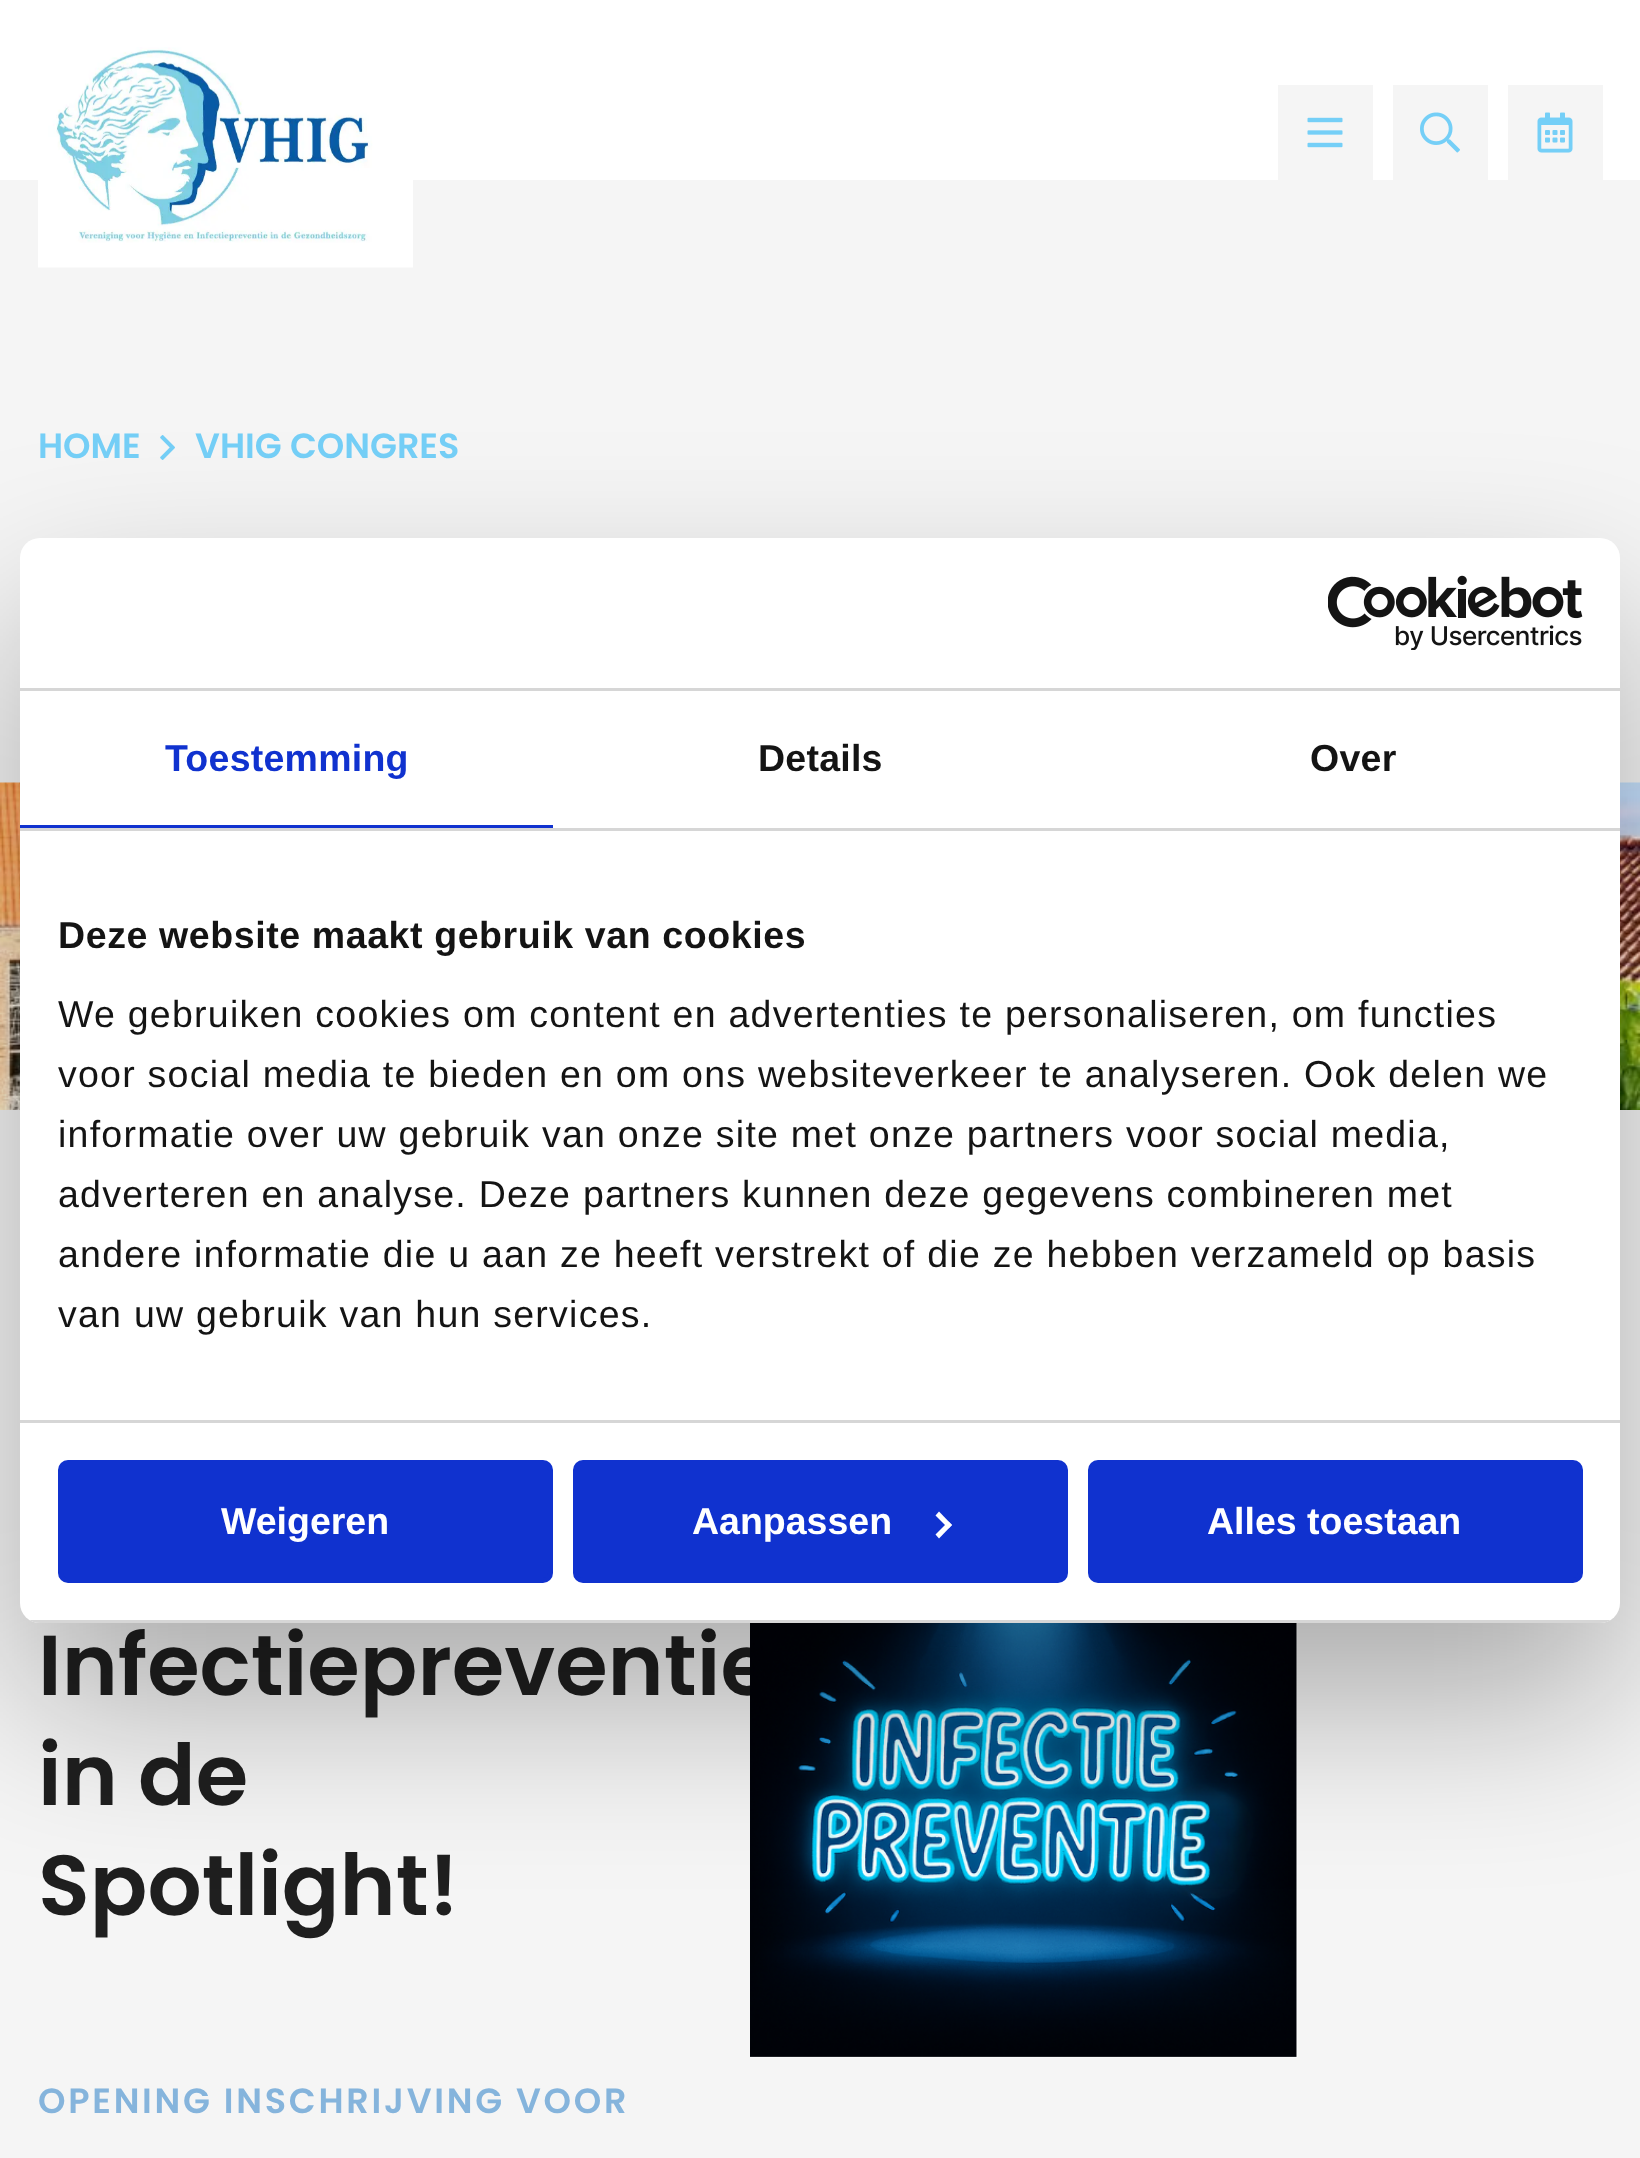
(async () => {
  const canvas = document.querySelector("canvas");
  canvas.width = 1640;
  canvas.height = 2158;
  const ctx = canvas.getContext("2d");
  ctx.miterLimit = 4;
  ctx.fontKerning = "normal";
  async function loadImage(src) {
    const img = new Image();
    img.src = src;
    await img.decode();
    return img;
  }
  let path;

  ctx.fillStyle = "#f5f5f5";
  ctx.fillRect(0, 0, 1640, 2158);
  ctx.fillStyle = "#ffffff";
  ctx.fillRect(0, 0, 1640, 180);
  ctx.drawImage(await loadImage("img/1.png"), 38, 47, 375, 221);
  ctx.fillStyle = "#f5f5f5";
  ctx.fillRect(1278, 85, 95, 95);
  ctx.drawImage(await loadImage("img/2.png"), 1307, 117, 36, 31);
  ctx.fillRect(1393, 85, 95, 95);
  ctx.drawImage(await loadImage("img/3.png"), 1420, 112, 40, 41);
  ctx.fillRect(1508, 85, 95, 95);
  ctx.drawImage(await loadImage("img/4.png"), 1537, 112, 36, 41);
  ctx.drawImage(await loadImage("img/5.png"), 160, 435, 15, 25);
  ctx.drawImage(await loadImage("img/6.png"), 0, 782, 1640, 328);
  ctx.font = "600 35px Poppins";
  ctx.fillStyle = "#75cff7";
  ctx.fillText("HOME", 38, 458);
  ctx.fillText("VHIG CONGRES", 195, 458);
  ctx.font = "600 85px Poppins";
  ctx.fillStyle = "#1f1f1f";
  for (const [text, x, y] of [
    ["Infectiepreventie", 38, 1695],
    ["in de", 38, 1805],
    ["Spotlight!", 38, 1915],
  ]) {
    ctx.fillText(text, x, y);
  }
  ctx.letterSpacing = "2.75px";
  ctx.font = "600 35px Poppins";
  ctx.fillStyle = "#85b4dc";
  ctx.fillText("OPENING INSCHRIJVING VOOR", 38, 2113);
  ctx.drawImage(await loadImage("img/7.png"), 750, 1623, 548, 435);
  ctx.fillStyle = "rgba(0, 0, 0, 0.3)";
  ctx.filter = "blur(85px)";
  ctx.beginPath();
  ctx.roundRect(20, 618, 1600, 1085, 20);
  ctx.fill();
  ctx.filter = "none";
  ctx.fillStyle = "#ffffff";
  ctx.beginPath();
  ctx.roundRect(20, 538, 1600, 1085, 20);
  ctx.fill();
  ctx.fillStyle = "#d6d6d6";
  ctx.fillRect(20, 688, 1600, 3);
  ctx.drawImage(await loadImage("img/8.png"), 1328, 575, 255, 75);
  ctx.fillRect(20, 828, 1600, 3);
  ctx.fillStyle = "#1032cf";
  ctx.fillRect(20, 825, 533, 3);
  ctx.letterSpacing = "0.25px";
  ctx.font = "bold 37.5px Liberation Sans";
  ctx.fillText("Toestemming", 165, 771);
  ctx.fillStyle = "#141414";
  ctx.fillText("Details", 758, 771);
  ctx.fillText("Over", 1310, 771);
  ctx.fillStyle = "#d6d6d6";
  ctx.fillRect(20, 1420, 1600, 3);
  ctx.letterSpacing = "0.6px";
  ctx.fillStyle = "#141414";
  ctx.fillText("Deze website maakt gebruik van cookies", 58, 948);
  ctx.letterSpacing = "1.25px";
  ctx.font = "37.5px Liberation Sans";
  for (const [text, x, y] of [
    ["We gebruiken cookies om content en advertenties te personaliseren, om functies", 58, 1027],
    ["voor social media te bieden en om ons websiteverkeer te analyseren. Ook delen we", 58, 1087],
    ["informatie over uw gebruik van onze site met onze partners voor social media,", 58, 1147],
    ["adverteren en analyse. Deze partners kunnen deze gegevens combineren met", 58, 1207],
    ["andere informatie die u aan ze heeft verstrekt of die ze hebben verzameld op basis", 58, 1267],
    ["van uw gebruik van hun services.", 58, 1327],
  ]) {
    ctx.fillText(text, x, y);
  }
  ctx.save();
  ctx.beginPath();
  ctx.roundRect(20, 538, 1600, 1085, 20);
  ctx.clip();
  ctx.fillStyle = "#d6d6d6";
  ctx.fillRect(29, 1620, 1582, 3);
  ctx.restore();
  ctx.fillStyle = "#1032cf";
  ctx.beginPath();
  ctx.roundRect(60.5, 1462.5, 490, 118, 7.5);
  ctx.fill();
  ctx.strokeStyle = "#1032cf";
  ctx.lineWidth = 5;
  ctx.stroke();
  ctx.letterSpacing = "0px";
  ctx.font = "bold 37.5px Liberation Sans";
  ctx.fillStyle = "#ffffff";
  ctx.fillText("Weigeren", 221, 1534);
  ctx.fillStyle = "#1032cf";
  ctx.beginPath();
  ctx.roundRect(575.5, 1462.5, 490, 118, 7.5);
  ctx.fill();
  ctx.stroke();
  ctx.fillStyle = "#ffffff";
  ctx.fillText("Aanpassen", 692, 1534);
  path = new Path2D("M939 1511.5L952 1525L948.5 1528.5L935.5 1515.5Z");
  ctx.fill(path);
  path = new Path2D("M948.5 1521.5L952 1525L939 1538.5L935.5 1534.5Z");
  ctx.fill(path);
  ctx.fillStyle = "#1032cf";
  ctx.beginPath();
  ctx.roundRect(1090.5, 1462.5, 490, 118, 7.5);
  ctx.fill();
  ctx.stroke();
  ctx.fillStyle = "#ffffff";
  ctx.fillText("Alles toestaan", 1207, 1534);
})();
